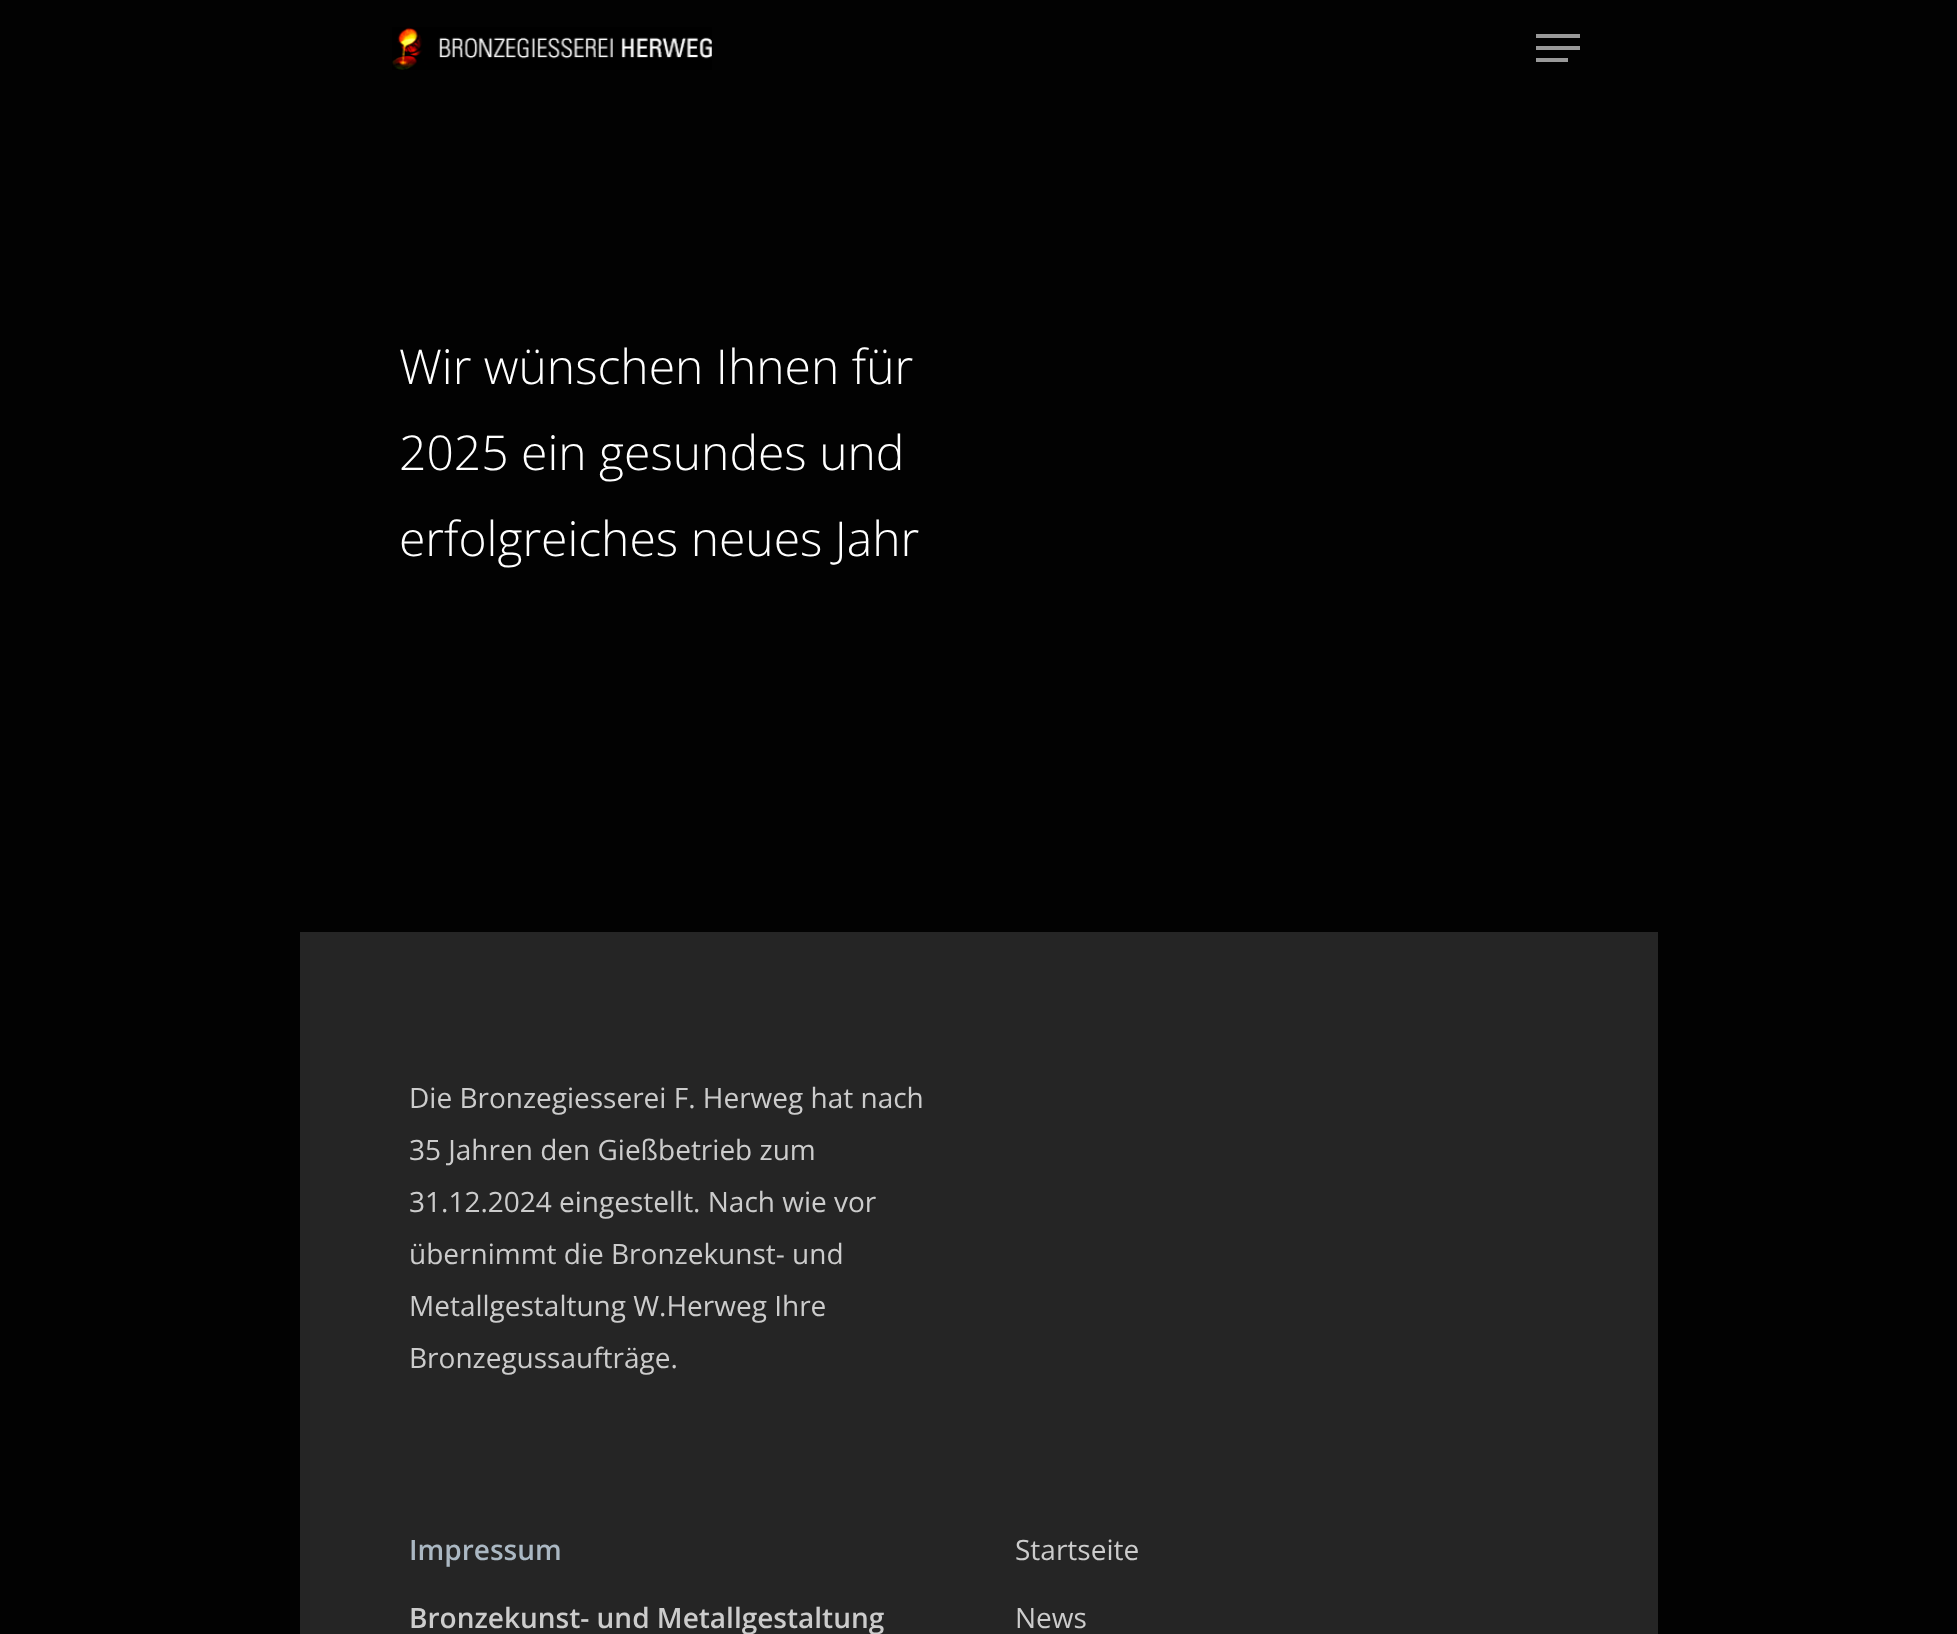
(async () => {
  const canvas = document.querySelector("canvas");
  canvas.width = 1957;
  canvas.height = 1634;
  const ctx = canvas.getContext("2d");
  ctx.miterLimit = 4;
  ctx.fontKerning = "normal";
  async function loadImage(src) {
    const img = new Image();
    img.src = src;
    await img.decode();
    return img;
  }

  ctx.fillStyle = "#020202";
  ctx.fillRect(0, 0, 1957, 1634);
  ctx.drawImage(await loadImage("img/1.png"), 392, 27, 320, 43);
  for (const [x, y, w, h, color] of [
    [1536, 34, 44, 4, "#999999"],
    [1536, 58, 32, 4, "#999999"],
    [1536, 46, 44, 4, "#999999"],
    [300, 932, 1358, 702, "#252525"],
  ]) {
    ctx.fillStyle = color;
    ctx.fillRect(x, y, w, h);
  }
  ctx.font = "300 48px Open Sans";
  ctx.fillStyle = "#ffffff";
  for (const [text, x, y] of [
    ["Wir wünschen Ihnen für", 399, 384],
    ["2025 ein gesundes und", 399, 470],
    ["erfolgreiches neues Jahr", 399, 556],
  ]) {
    ctx.fillText(text, x, y);
  }
  ctx.font = "28px Open Sans";
  ctx.fillStyle = "#cccccc";
  for (const [text, x, y] of [
    ["Die Bronzegiesserei F. Herweg hat nach", 409, 1108],
    ["35 Jahren den Gießbetrieb zum", 409, 1160],
    ["31.12.2024 eingestellt. Nach wie vor", 409, 1212],
    ["übernimmt die Bronzekunst- und", 409, 1264],
    ["Metallgestaltung W.Herweg Ihre", 409, 1316],
    ["Bronzegussaufträge.", 409, 1368],
  ]) {
    ctx.fillText(text, x, y);
  }
  ctx.font = "600 28px Open Sans";
  ctx.fillStyle = "#abb8c3";
  ctx.fillText("Impressum", 409, 1560);
  ctx.fillStyle = "#cccccc";
  ctx.fillText("Bronzekunst- und Metallgestaltung", 409, 1628);
  ctx.font = "28px Open Sans";
  ctx.fillText("Startseite", 1015, 1560);
  ctx.fillText("News", 1015, 1628);
})();
